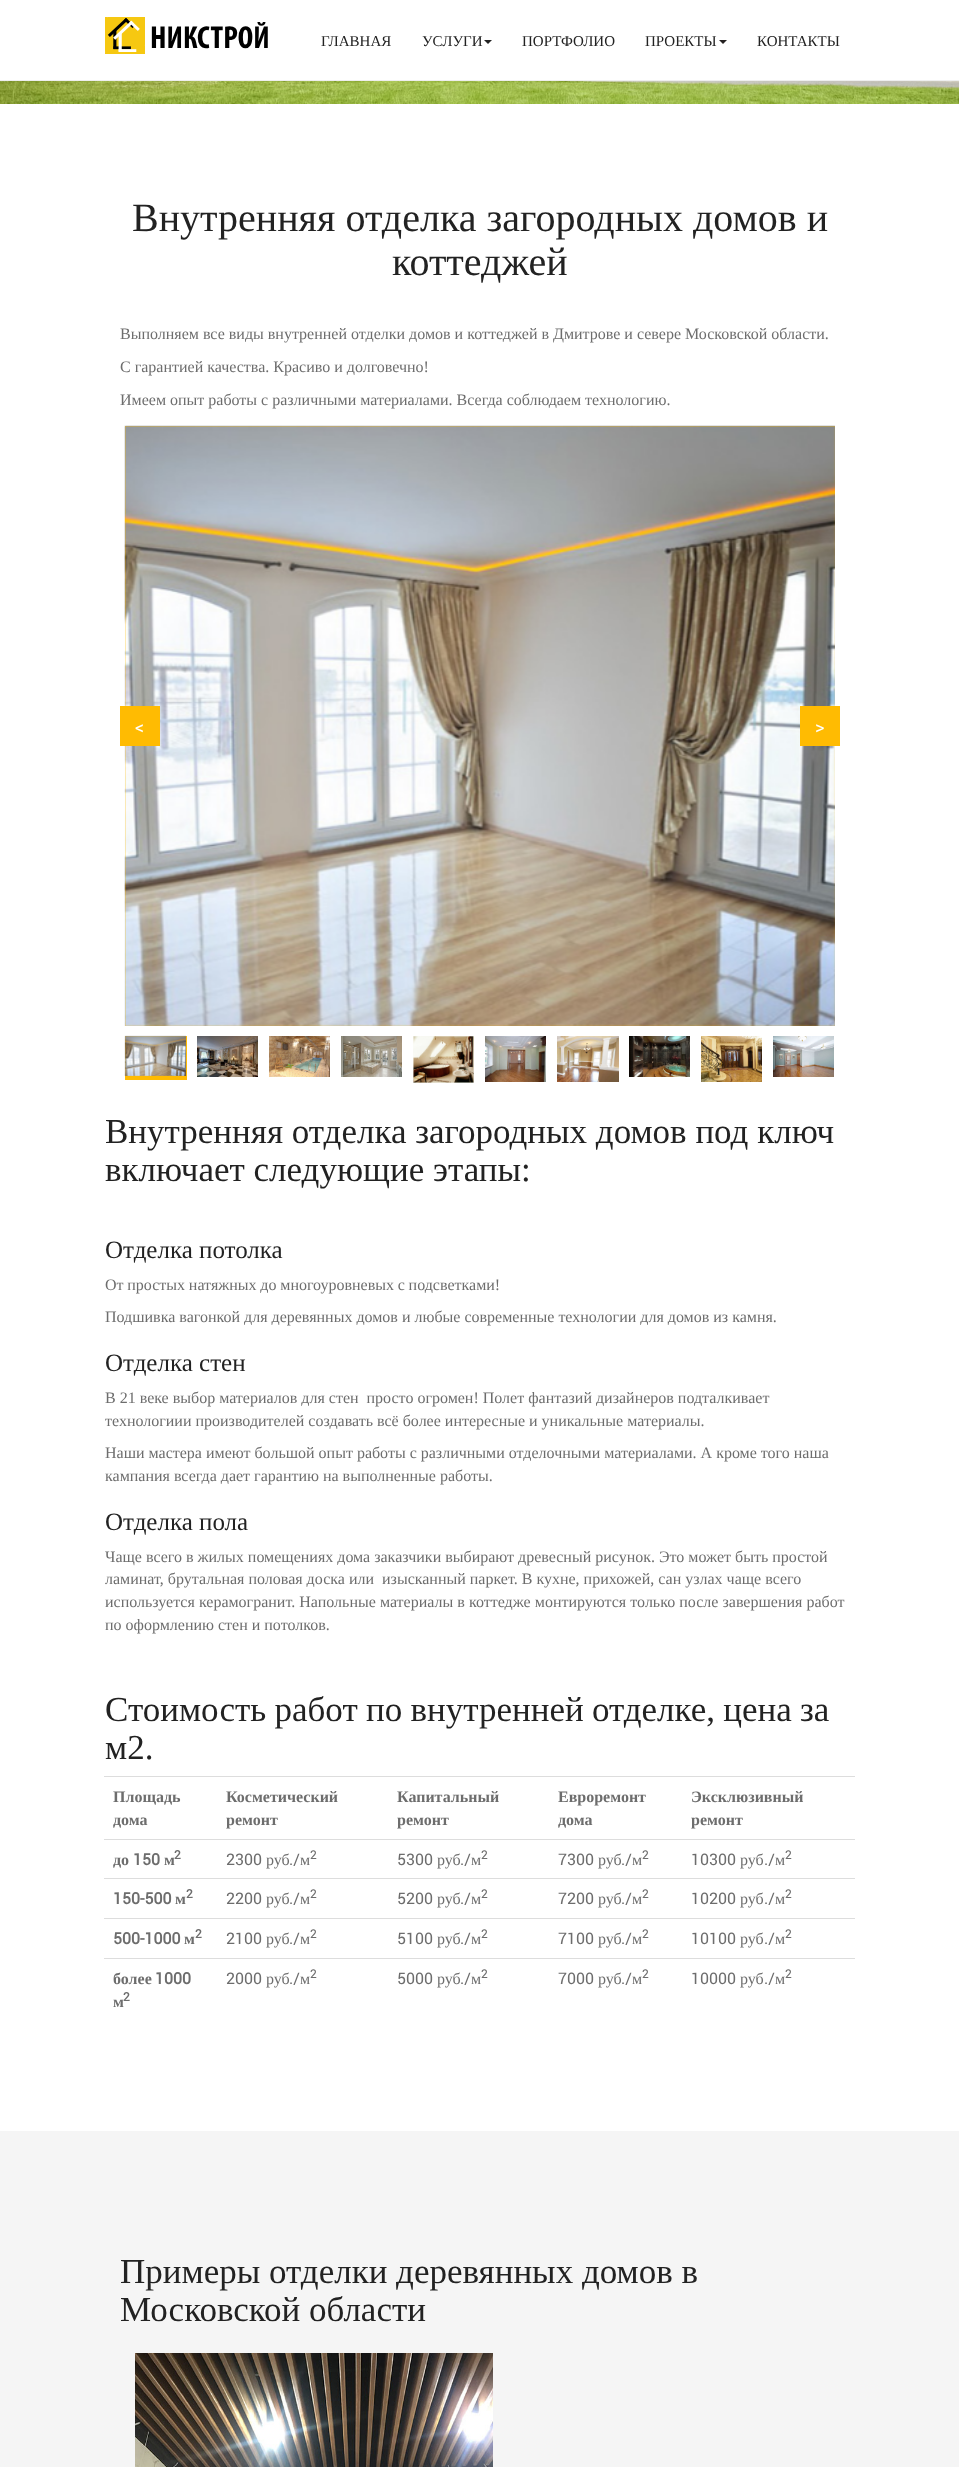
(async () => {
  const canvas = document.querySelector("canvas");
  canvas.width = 959;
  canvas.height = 2467;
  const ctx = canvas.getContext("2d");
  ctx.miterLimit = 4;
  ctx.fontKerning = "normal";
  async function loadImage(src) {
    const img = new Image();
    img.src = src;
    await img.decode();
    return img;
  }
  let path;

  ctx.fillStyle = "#ffffff";
  ctx.fillRect(0, 0, 959, 2467);
  ctx.fillStyle = "#eeeeee";
  ctx.fillRect(0, 80, 959, 1);
  ctx.drawImage(await loadImage("img/1.png"), 105, 17, 40, 37);
  ctx.fillStyle = "#222222";
  path = new Path2D("M484 40H492L488 44Z");
  ctx.fill(path);
  ctx.fillStyle = "#242121";
  path = new Path2D("M719 40H727L723 44Z");
  ctx.fill(path);
  ctx.drawImage(await loadImage("img/2.png"), 0, 81, 959, 23);
  ctx.fillStyle = "#ffbb02";
  ctx.fillRect(125, 426, 710, 600);
  ctx.drawImage(await loadImage("img/3.png"), 124, 425, 711, 601);
  for (const [x, y, w, h, color] of [
    [120, 706, 40, 40, "#ffbb02"],
    [800, 706, 40, 40, "#ffbb02"],
    [125, 1036, 62, 44, "#ffbb02"],
  ]) {
    ctx.fillStyle = color;
    ctx.fillRect(x, y, w, h);
  }
  ctx.drawImage(await loadImage("img/4.png"), 124, 1035, 62, 41);
  ctx.drawImage(await loadImage("img/5.png"), 197, 1036, 61, 41);
  ctx.drawImage(await loadImage("img/6.png"), 269, 1036, 61, 41);
  ctx.drawImage(await loadImage("img/7.png"), 341, 1036, 61, 41);
  ctx.drawImage(await loadImage("img/8.png"), 413, 1036, 61, 47);
  ctx.drawImage(await loadImage("img/9.png"), 485, 1036, 61, 46);
  ctx.drawImage(await loadImage("img/10.png"), 557, 1036, 62, 46);
  ctx.drawImage(await loadImage("img/11.png"), 629, 1036, 61, 41);
  ctx.drawImage(await loadImage("img/12.png"), 701, 1036, 61, 46);
  ctx.drawImage(await loadImage("img/13.png"), 773, 1036, 61, 41);
  for (const [x, y, w, h, color] of [
    [104, 1776, 751, 1, "#dddddd"],
    [104, 1839, 751, 1, "#dddddd"],
    [104, 1878, 751, 1, "#dddddd"],
    [104, 1918, 751, 1, "#dddddd"],
    [104, 1958, 751, 1, "#dddddd"],
    [0, 2131, 959, 336, "#f5f5f5"],
  ]) {
    ctx.fillStyle = color;
    ctx.fillRect(x, y, w, h);
  }
  ctx.drawImage(await loadImage("img/14.png"), 135, 2353, 358, 114);
  ctx.font = "bold 32px Myriad";
  ctx.fillStyle = "#000000";
  ctx.fillText("НИКСТРОЙ", 150, 48);
  ctx.font = "15px Liberation Serif";
  ctx.fillStyle = "#222222";
  for (const [text, x, y] of [
    ["ГЛАВНАЯ", 321, 46],
    ["УСЛУГИ", 422, 46],
    ["ПОРТФОЛИО", 522, 46],
    ["ПРОЕКТЫ", 645, 46],
    ["КОНТАКТЫ", 757, 46],
  ]) {
    ctx.fillText(text, x, y);
  }
  ctx.font = "40px Liberation Serif";
  ctx.fillText("Внутренняя отделка загородных домов и", 132, 231);
  ctx.fillText("коттеджей", 392, 275);
  ctx.font = "16px Liberation Serif";
  ctx.fillStyle = "#6d6d6d";
  for (const [text, x, y] of [
    ["Выполняем все виды внутренней отделки домов и коттеджей в Дмитрове и севере Московской области.", 120, 339],
    ["С гарантией качества. Красиво и долговечно!", 120, 372],
    ["Имеем опыт работы с различными материалами. Всегда соблюдаем технологию.", 120, 405],
  ]) {
    ctx.fillText(text, x, y);
  }
  ctx.font = "18px Roboto";
  ctx.fillStyle = "#ffffff";
  ctx.fillText("<", 135, 733);
  ctx.fillText(">", 815, 733);
  ctx.font = "35px Liberation Serif";
  ctx.fillStyle = "#222222";
  ctx.fillText("Внутренняя отделка загородных домов под ключ", 105, 1143);
  ctx.fillText("включает следующие этапы:", 105, 1181);
  ctx.font = "25px Liberation Serif";
  ctx.fillText("Отделка потолка", 105, 1258);
  ctx.wordSpacing = "-0.25px";
  ctx.font = "16px Liberation Serif";
  ctx.fillStyle = "#6d6d6d";
  ctx.fillText("От простых натяжных до многоуровневых с подсветками!", 105, 1290);
  ctx.wordSpacing = "0px";
  ctx.fillText("Подшивка вагонкой для деревянных домов и любые современные технологии для домов из камня.", 105, 1322);
  ctx.font = "25px Liberation Serif";
  ctx.fillStyle = "#222222";
  ctx.fillText("Отделка стен", 105, 1371);
  ctx.font = "16px Liberation Serif";
  ctx.fillStyle = "#6d6d6d";
  for (const [text, x, y] of [
    ["В 21 веке выбор материалов для стен  просто огромен! Полет фантазий дизайнеров подталкивает", 105, 1403],
    ["технологиии производителей создавать всё более интересные и уникальные материалы.", 105, 1426],
    ["Наши мастера имеют большой опыт работы с различными отделочными материалами. А кроме того наша", 105, 1458],
    ["кампания всегда дает гарантию на выполненные работы.", 105, 1481],
  ]) {
    ctx.fillText(text, x, y);
  }
  ctx.font = "25px Liberation Serif";
  ctx.fillStyle = "#222222";
  ctx.fillText("Отделка пола", 105, 1530);
  ctx.font = "16px Liberation Serif";
  ctx.fillStyle = "#6d6d6d";
  ctx.fillText("Чаще всего в жилых помещениях дома заказчики выбирают древесный рисунок. Это может быть простой", 105, 1562);
  ctx.fillText("ламинат, брутальная половая доска или  изысканный паркет. В кухне, прихожей, сан узлах чаще всего", 105, 1584);
  ctx.wordSpacing = "0.1px";
  ctx.fillText("используется керамогранит. Напольные материалы в коттедже монтируются только после завершения работ", 105, 1607);
  ctx.wordSpacing = "0px";
  ctx.fillText("по оформлению стен и потолков.", 105, 1630);
  ctx.wordSpacing = "-0.5px";
  ctx.font = "35px Liberation Serif";
  ctx.fillStyle = "#222222";
  ctx.fillText("Стоимость работ по внутренней отделке, цена за", 105, 1721);
  ctx.wordSpacing = "0px";
  ctx.fillText("м2.", 105, 1759);
  ctx.font = "bold 16px Liberation Serif";
  ctx.fillStyle = "#6d6d6d";
  for (const [text, x, y] of [
    ["Площадь", 113, 1802],
    ["дома", 113, 1825],
    ["Косметический", 226, 1802],
    ["ремонт", 226, 1825],
    ["Капитальный", 397, 1802],
    ["ремонт", 397, 1825],
    ["Евроремонт", 558, 1802],
    ["дома", 558, 1825],
    ["Эксклюзивный", 691, 1802],
    ["ремонт", 691, 1825],
    ["до", 113, 1865],
  ]) {
    ctx.fillText(text, x, y);
  }
  ctx.font = "bold 16px Roboto";
  ctx.fillText("150", 133, 1865);
  ctx.font = "bold 16px Liberation Serif";
  ctx.fillText("м", 164, 1865);
  ctx.font = "bold 12px Roboto";
  ctx.fillText("2", 174, 1859);
  ctx.font = "16px Roboto";
  ctx.fillText("2300", 226, 1865);
  ctx.font = "16px Liberation Serif";
  ctx.fillText("руб", 266, 1865);
  ctx.font = "16px Roboto";
  ctx.fillText("./", 289, 1865);
  ctx.font = "16px Liberation Serif";
  ctx.fillText("м", 300, 1865);
  ctx.font = "12px Roboto";
  ctx.fillText("2", 310, 1859);
  ctx.font = "16px Roboto";
  ctx.fillText("5300", 397, 1865);
  ctx.font = "16px Liberation Serif";
  ctx.fillText("руб", 437, 1865);
  ctx.font = "16px Roboto";
  ctx.fillText("./", 460, 1865);
  ctx.font = "16px Liberation Serif";
  ctx.fillText("м", 471, 1865);
  ctx.font = "12px Roboto";
  ctx.fillText("2", 481, 1859);
  ctx.font = "16px Roboto";
  ctx.fillText("7300", 558, 1865);
  ctx.font = "16px Liberation Serif";
  ctx.fillText("руб", 598, 1865);
  ctx.font = "16px Roboto";
  ctx.fillText("./", 621, 1865);
  ctx.font = "16px Liberation Serif";
  ctx.fillText("м", 632, 1865);
  ctx.font = "12px Roboto";
  ctx.fillText("2", 642, 1859);
  ctx.font = "16px Roboto";
  ctx.fillText("10300", 691, 1865);
  ctx.font = "16px Liberation Serif";
  ctx.fillText("руб", 740, 1865);
  ctx.font = "16px Roboto";
  ctx.fillText("./", 764, 1865);
  ctx.font = "16px Liberation Serif";
  ctx.fillText("м", 775, 1865);
  ctx.font = "12px Roboto";
  ctx.fillText("2", 785, 1859);
  ctx.font = "bold 16px Roboto";
  ctx.fillText("150-500", 113, 1904);
  ctx.font = "bold 16px Liberation Serif";
  ctx.fillText("м", 175, 1904);
  ctx.font = "bold 12px Roboto";
  ctx.fillText("2", 186, 1898);
  ctx.font = "16px Roboto";
  ctx.fillText("2200", 226, 1904);
  ctx.font = "16px Liberation Serif";
  ctx.fillText("руб", 266, 1904);
  ctx.font = "16px Roboto";
  ctx.fillText("./", 289, 1904);
  ctx.font = "16px Liberation Serif";
  ctx.fillText("м", 300, 1904);
  ctx.font = "12px Roboto";
  ctx.fillText("2", 310, 1898);
  ctx.font = "16px Roboto";
  ctx.fillText("5200", 397, 1904);
  ctx.font = "16px Liberation Serif";
  ctx.fillText("руб", 437, 1904);
  ctx.font = "16px Roboto";
  ctx.fillText("./", 460, 1904);
  ctx.font = "16px Liberation Serif";
  ctx.fillText("м", 471, 1904);
  ctx.font = "12px Roboto";
  ctx.fillText("2", 481, 1898);
  ctx.font = "16px Roboto";
  ctx.fillText("7200", 558, 1904);
  ctx.font = "16px Liberation Serif";
  ctx.fillText("руб", 598, 1904);
  ctx.font = "16px Roboto";
  ctx.fillText("./", 621, 1904);
  ctx.font = "16px Liberation Serif";
  ctx.fillText("м", 632, 1904);
  ctx.font = "12px Roboto";
  ctx.fillText("2", 642, 1898);
  ctx.font = "16px Roboto";
  ctx.fillText("10200", 691, 1904);
  ctx.font = "16px Liberation Serif";
  ctx.fillText("руб", 740, 1904);
  ctx.font = "16px Roboto";
  ctx.fillText("./", 764, 1904);
  ctx.font = "16px Liberation Serif";
  ctx.fillText("м", 775, 1904);
  ctx.font = "12px Roboto";
  ctx.fillText("2", 785, 1898);
  ctx.font = "bold 16px Roboto";
  ctx.fillText("500-1000", 113, 1944);
  ctx.font = "bold 16px Liberation Serif";
  ctx.fillText("м", 184, 1944);
  ctx.font = "bold 12px Roboto";
  ctx.fillText("2", 195, 1938);
  ctx.font = "16px Roboto";
  ctx.fillText("2100", 226, 1944);
  ctx.font = "16px Liberation Serif";
  ctx.fillText("руб", 266, 1944);
  ctx.font = "16px Roboto";
  ctx.fillText("./", 289, 1944);
  ctx.font = "16px Liberation Serif";
  ctx.fillText("м", 300, 1944);
  ctx.font = "12px Roboto";
  ctx.fillText("2", 310, 1938);
  ctx.font = "16px Roboto";
  ctx.fillText("5100", 397, 1944);
  ctx.font = "16px Liberation Serif";
  ctx.fillText("руб", 437, 1944);
  ctx.font = "16px Roboto";
  ctx.fillText("./", 460, 1944);
  ctx.font = "16px Liberation Serif";
  ctx.fillText("м", 471, 1944);
  ctx.font = "12px Roboto";
  ctx.fillText("2", 481, 1938);
  ctx.font = "16px Roboto";
  ctx.fillText("7100", 558, 1944);
  ctx.font = "16px Liberation Serif";
  ctx.fillText("руб", 598, 1944);
  ctx.font = "16px Roboto";
  ctx.fillText("./", 621, 1944);
  ctx.font = "16px Liberation Serif";
  ctx.fillText("м", 632, 1944);
  ctx.font = "12px Roboto";
  ctx.fillText("2", 642, 1938);
  ctx.font = "16px Roboto";
  ctx.fillText("10100", 691, 1944);
  ctx.font = "16px Liberation Serif";
  ctx.fillText("руб", 740, 1944);
  ctx.font = "16px Roboto";
  ctx.fillText("./", 764, 1944);
  ctx.font = "16px Liberation Serif";
  ctx.fillText("м", 775, 1944);
  ctx.font = "12px Roboto";
  ctx.fillText("2", 785, 1938);
  ctx.font = "bold 16px Liberation Serif";
  ctx.fillText("более", 113, 1984);
  ctx.font = "bold 16px Roboto";
  ctx.fillText("1000", 155, 1984);
  ctx.font = "bold 12px Roboto";
  ctx.fillText("2", 123, 2001);
  ctx.font = "bold 16px Liberation Serif";
  ctx.fillText("м", 113, 2007);
  ctx.font = "16px Roboto";
  ctx.fillText("2000", 226, 1984);
  ctx.font = "16px Liberation Serif";
  ctx.fillText("руб", 266, 1984);
  ctx.font = "16px Roboto";
  ctx.fillText("./", 289, 1984);
  ctx.font = "16px Liberation Serif";
  ctx.fillText("м", 300, 1984);
  ctx.font = "12px Roboto";
  ctx.fillText("2", 310, 1978);
  ctx.font = "16px Roboto";
  ctx.fillText("5000", 397, 1984);
  ctx.font = "16px Liberation Serif";
  ctx.fillText("руб", 437, 1984);
  ctx.font = "16px Roboto";
  ctx.fillText("./", 460, 1984);
  ctx.font = "16px Liberation Serif";
  ctx.fillText("м", 471, 1984);
  ctx.font = "12px Roboto";
  ctx.fillText("2", 481, 1978);
  ctx.font = "16px Roboto";
  ctx.fillText("7000", 558, 1984);
  ctx.font = "16px Liberation Serif";
  ctx.fillText("руб", 598, 1984);
  ctx.font = "16px Roboto";
  ctx.fillText("./", 621, 1984);
  ctx.font = "16px Liberation Serif";
  ctx.fillText("м", 632, 1984);
  ctx.font = "12px Roboto";
  ctx.fillText("2", 642, 1978);
  ctx.font = "16px Roboto";
  ctx.fillText("10000", 691, 1984);
  ctx.font = "16px Liberation Serif";
  ctx.fillText("руб", 740, 1984);
  ctx.font = "16px Roboto";
  ctx.fillText("./", 764, 1984);
  ctx.font = "16px Liberation Serif";
  ctx.fillText("м", 775, 1984);
  ctx.font = "12px Roboto";
  ctx.fillText("2", 785, 1978);
  ctx.font = "35px Liberation Serif";
  ctx.fillStyle = "#222222";
  ctx.fillText("Примеры отделки деревянных домов в", 120, 2283);
  ctx.fillText("Московской области", 120, 2321);
})();
